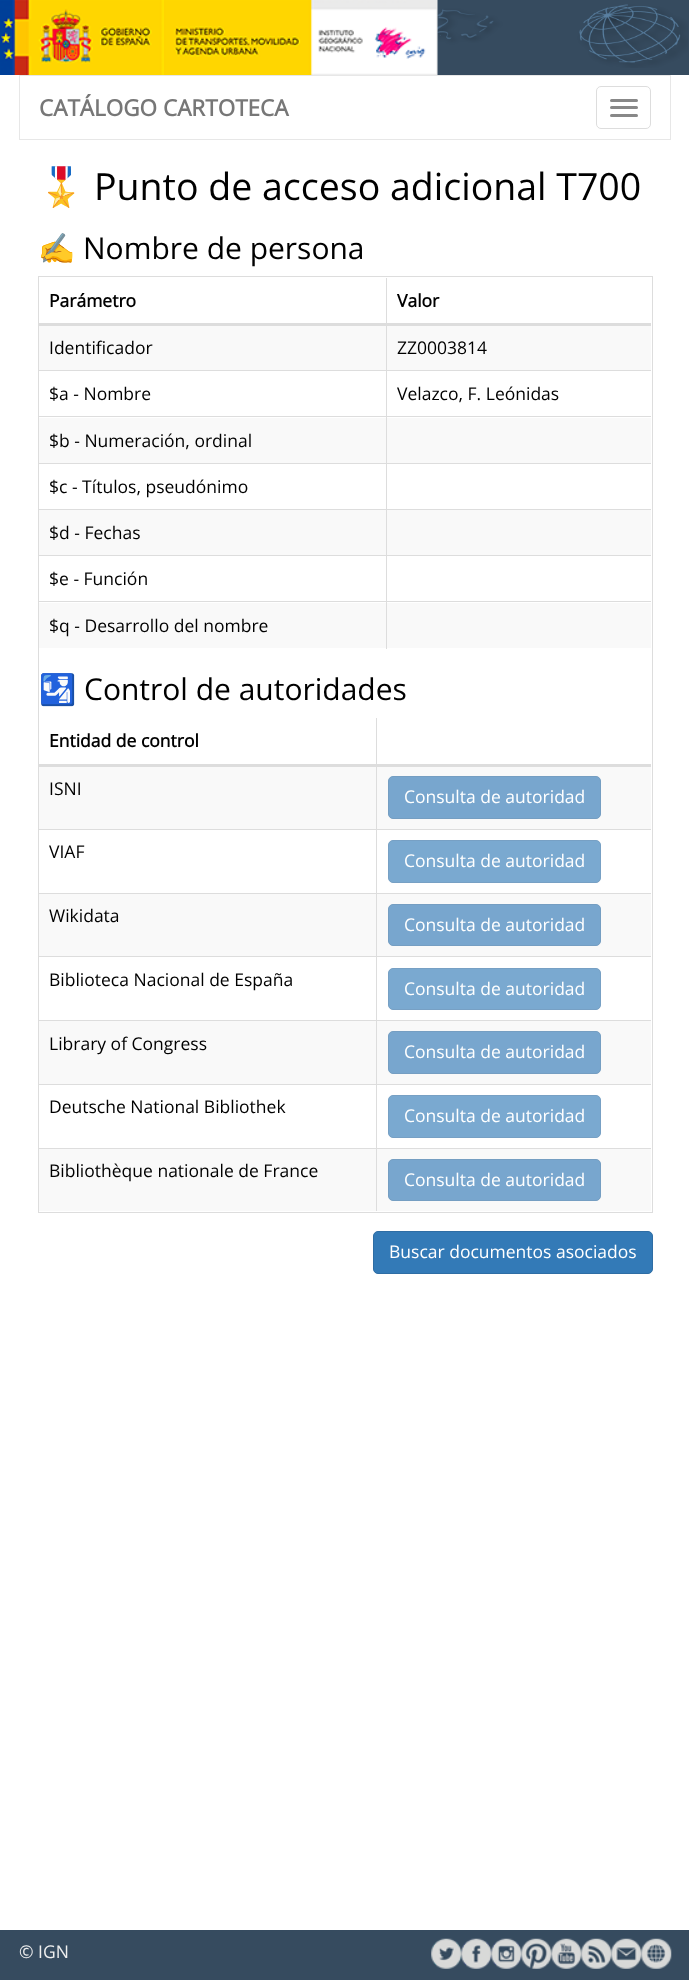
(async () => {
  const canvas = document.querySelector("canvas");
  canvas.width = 689;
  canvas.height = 1980;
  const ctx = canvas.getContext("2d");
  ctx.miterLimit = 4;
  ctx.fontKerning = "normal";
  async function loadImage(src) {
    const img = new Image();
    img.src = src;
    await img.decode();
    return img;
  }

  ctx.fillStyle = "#ffffff";
  ctx.fillRect(0, 0, 689, 1980);
  ctx.fillStyle = "#364b5f";
  ctx.fillRect(437, 0, 252, 75);
  ctx.drawImage(await loadImage("img/1.png"), 437, 4, 251, 64);
  ctx.drawImage(await loadImage("img/2.png"), 0, 0, 438, 75);
  ctx.strokeStyle = "#e7e7e7";
  ctx.strokeRect(19.5, 75.5, 651, 64);
  ctx.beginPath();
  ctx.roundRect(596.5, 86.5, 54, 42, 4.5);
  ctx.strokeStyle = "#dddddd";
  ctx.stroke();
  ctx.fillStyle = "#888888";
  ctx.beginPath();
  ctx.roundRect(610, 99, 28, 3, 1.5);
  ctx.fill();
  ctx.beginPath();
  ctx.roundRect(610, 106, 28, 3, 1.5);
  ctx.fill();
  ctx.beginPath();
  ctx.roundRect(610, 114, 28, 3, 1.5);
  ctx.fill();
  ctx.strokeRect(38.5, 276.5, 614, 936);
  for (const [x, y, w, h, color] of [
    [39, 326, 612, 44, "#f9f9f9"],
    [39, 370, 612, 1, "#dddddd"],
    [39, 416, 612, 1, "#dddddd"],
    [39, 418, 612, 45, "#f9f9f9"],
    [39, 463, 612, 1, "#dddddd"],
    [39, 509, 612, 1, "#dddddd"],
    [39, 510, 612, 45, "#f9f9f9"],
    [39, 555, 612, 1, "#dddddd"],
    [39, 601, 612, 1, "#dddddd"],
    [39, 603, 612, 45, "#f9f9f9"],
    [386, 601, 1, 48, "#dddddd"],
    [386, 555, 1, 48, "#dddddd"],
    [386, 509, 1, 47, "#dddddd"],
    [386, 463, 1, 47, "#dddddd"],
    [386, 416, 1, 48, "#dddddd"],
    [386, 278, 1, 140, "#dddddd"],
    [39, 323, 612, 3, "#dddddd"],
    [39, 767, 612, 62, "#f9f9f9"],
    [39, 829, 612, 1, "#dddddd"],
    [39, 894, 612, 62, "#f9f9f9"],
    [39, 893, 612, 1, "#dddddd"],
    [39, 956, 612, 1, "#dddddd"],
    [39, 1021, 612, 63, "#f9f9f9"],
    [39, 1020, 612, 1, "#dddddd"],
    [39, 1084, 612, 1, "#dddddd"],
    [39, 1149, 612, 62, "#f9f9f9"],
    [39, 1148, 612, 1, "#dddddd"],
    [376, 1148, 1, 63, "#dddddd"],
    [376, 1084, 1, 65, "#dddddd"],
    [376, 1020, 1, 65, "#dddddd"],
    [376, 956, 1, 65, "#dddddd"],
    [376, 893, 1, 65, "#dddddd"],
    [376, 718, 1, 176, "#dddddd"],
    [39, 764, 612, 3, "#dddddd"],
  ]) {
    ctx.fillStyle = color;
    ctx.fillRect(x, y, w, h);
  }
  ctx.fillStyle = "#78a6ce";
  ctx.beginPath();
  ctx.roundRect(388.5, 776.5, 212, 42, 4.5);
  ctx.fill();
  ctx.strokeStyle = "#759ec2";
  ctx.stroke();
  ctx.fillStyle = "#7aa9d0";
  ctx.beginPath();
  ctx.roundRect(388.5, 840.5, 212, 42, 4.5);
  ctx.fill();
  ctx.strokeStyle = "#77a0c4";
  ctx.stroke();
  ctx.fillStyle = "#78a6ce";
  ctx.beginPath();
  ctx.roundRect(388.5, 904.5, 212, 41, 4.5);
  ctx.fill();
  ctx.strokeStyle = "#759ec2";
  ctx.stroke();
  ctx.fillStyle = "#7aa9d0";
  ctx.beginPath();
  ctx.roundRect(388.5, 968.5, 212, 41, 4.5);
  ctx.fill();
  ctx.strokeStyle = "#77a0c4";
  ctx.stroke();
  ctx.fillStyle = "#78a6ce";
  ctx.beginPath();
  ctx.roundRect(388.5, 1031.5, 212, 42, 4.5);
  ctx.fill();
  ctx.strokeStyle = "#759ec2";
  ctx.stroke();
  ctx.fillStyle = "#7aa9d0";
  ctx.beginPath();
  ctx.roundRect(388.5, 1095.5, 212, 42, 4.5);
  ctx.fill();
  ctx.strokeStyle = "#77a0c4";
  ctx.stroke();
  ctx.fillStyle = "#78a6ce";
  ctx.beginPath();
  ctx.roundRect(388.5, 1159.5, 212, 41, 4.5);
  ctx.fill();
  ctx.strokeStyle = "#759ec2";
  ctx.stroke();
  ctx.fillStyle = "#337ab7";
  ctx.beginPath();
  ctx.roundRect(373.5, 1231.5, 279, 42, 4.5);
  ctx.fill();
  ctx.strokeStyle = "#2e6da4";
  ctx.stroke();
  ctx.fillStyle = "#364b5f";
  ctx.fillRect(0, 1930, 689, 50);
  ctx.drawImage(await loadImage("img/10.png"), 641, 1938, 31, 31);
  ctx.drawImage(await loadImage("img/9.png"), 611, 1938, 31, 31);
  ctx.drawImage(await loadImage("img/8.png"), 581, 1938, 31, 31);
  ctx.drawImage(await loadImage("img/7.png"), 551, 1938, 31, 31);
  ctx.drawImage(await loadImage("img/6.png"), 521, 1938, 31, 31);
  ctx.drawImage(await loadImage("img/5.png"), 491, 1938, 31, 31);
  ctx.drawImage(await loadImage("img/4.png"), 461, 1938, 31, 31);
  ctx.drawImage(await loadImage("img/3.png"), 431, 1938, 31, 31);
  ctx.font = "bold 22.5px Open Sans";
  ctx.fillStyle = "#777777";
  ctx.fillText("CATÁLOGO CARTOTECA", 39, 116);
  ctx.font = "37.5px Noto Color Emoji";
  ctx.fillStyle = "#000000";
  ctx.fillText("🎖️", 38, 200);
  ctx.font = "37.5px Open Sans";
  ctx.fillText("Punto de acceso adicional T700", 94, 200);
  ctx.font = "30px Noto Color Emoji";
  ctx.fillText("✍", 38, 259);
  ctx.font = "30px Open Sans";
  ctx.fillText("Nombre de persona", 83, 259);
  ctx.font = "bold 17.5px Open Sans";
  ctx.fillText("Parámetro", 49, 307);
  ctx.fillText("Valor", 397, 307);
  ctx.font = "17.5px Open Sans";
  for (const [text, x, y] of [
    ["Identificador", 49, 354],
    ["ZZ0003814", 397, 354],
    ["$a - Nombre", 49, 400],
    ["Velazco, F. Leónidas", 397, 400],
    ["$b - Numeración, ordinal", 49, 447],
    ["$c - Títulos, pseudónimo", 49, 493],
    ["$d - Fechas", 49, 539],
    ["$e - Función", 49, 585],
    ["$q - Desarrollo del nombre", 49, 632],
  ]) {
    ctx.fillText(text, x, y);
  }
  ctx.save();
  ctx.beginPath();
  ctx.rect(39, 278, 612, 933);
  ctx.clip();
  ctx.font = "30px Noto Color Emoji";
  ctx.fillText("🛂", 39, 700);
  ctx.restore();
  ctx.font = "30px Open Sans";
  ctx.fillText("Control de autoridades", 84, 700);
  ctx.font = "bold 17.5px Open Sans";
  ctx.fillText("Entidad de control", 49, 747);
  ctx.font = "17.5px Open Sans";
  ctx.fillText("ISNI", 49, 795);
  ctx.fillStyle = "#ffffff";
  ctx.fillText("Consulta de autoridad", 404, 803);
  ctx.fillStyle = "#000000";
  ctx.fillText("VIAF", 49, 858);
  ctx.fillStyle = "#ffffff";
  ctx.fillText("Consulta de autoridad", 404, 867);
  ctx.fillStyle = "#000000";
  ctx.fillText("Wikidata", 49, 922);
  ctx.fillStyle = "#ffffff";
  ctx.fillText("Consulta de autoridad", 404, 931);
  ctx.fillStyle = "#000000";
  ctx.fillText("Biblioteca Nacional de España", 49, 986);
  ctx.fillStyle = "#ffffff";
  ctx.fillText("Consulta de autoridad", 404, 995);
  ctx.fillStyle = "#000000";
  ctx.fillText("Library of Congress", 49, 1050);
  ctx.fillStyle = "#ffffff";
  ctx.fillText("Consulta de autoridad", 404, 1058);
  ctx.fillStyle = "#000000";
  ctx.fillText("Deutsche National Bibliothek", 49, 1113);
  ctx.fillStyle = "#ffffff";
  ctx.fillText("Consulta de autoridad", 404, 1122);
  ctx.fillStyle = "#000000";
  ctx.fillText("Bibliothèque nationale de France", 49, 1177);
  ctx.fillStyle = "#ffffff";
  ctx.fillText("Consulta de autoridad", 404, 1186);
  ctx.fillText("Buscar documentos asociados", 389, 1258);
  ctx.fillStyle = "#efefef";
  ctx.fillText("© IGN", 19, 1958);
})();
